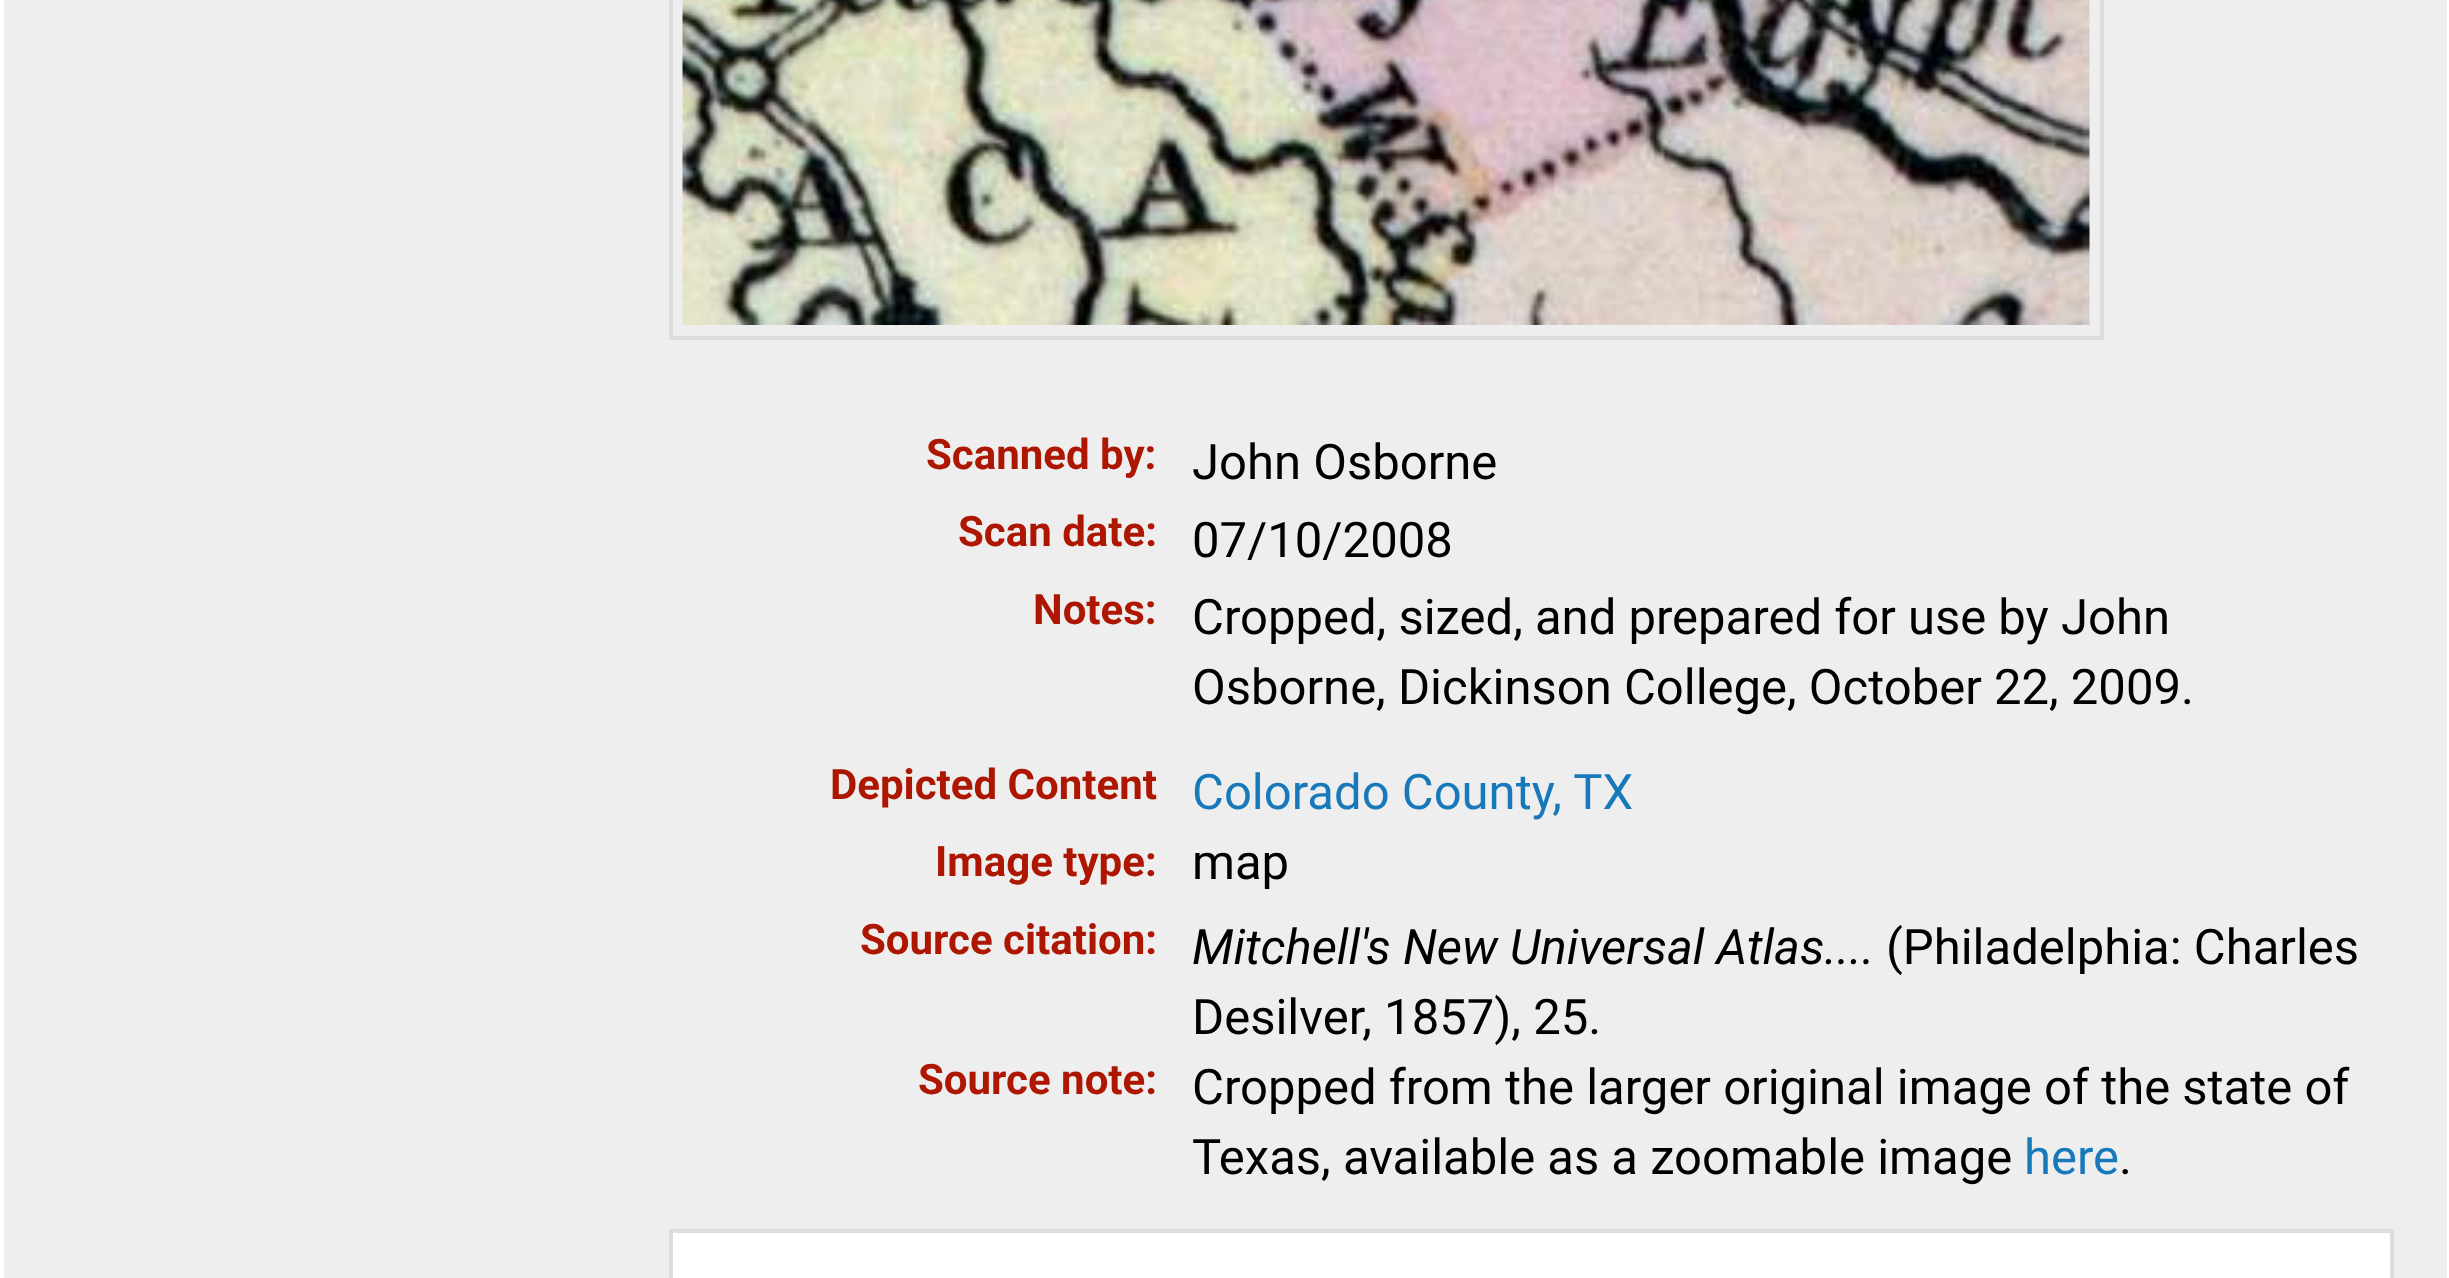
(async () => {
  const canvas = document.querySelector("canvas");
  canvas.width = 2449;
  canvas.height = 1278;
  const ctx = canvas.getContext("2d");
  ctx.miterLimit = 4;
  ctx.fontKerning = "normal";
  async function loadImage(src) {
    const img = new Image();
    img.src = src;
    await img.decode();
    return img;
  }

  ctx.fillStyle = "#ffffff";
  ctx.fillRect(0, 0, 2449, 1278);
  ctx.fillStyle = "#eeeeee";
  ctx.fillRect(4, 0, 2443, 1278);
  ctx.strokeStyle = "#dddddd";
  ctx.lineWidth = 4;
  ctx.strokeRect(671, -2, 1431, 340);
  ctx.drawImage(await loadImage("img/1.png"), 682, 0, 1408, 325);
  ctx.fillStyle = "#ffffff";
  ctx.beginPath();
  ctx.rect(671, 1231, 1721, 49);
  ctx.fill();
  ctx.stroke();
  ctx.font = "bold 42px Roboto";
  ctx.fillStyle = "#ad1600";
  ctx.fillText("Scanned by:", 926, 469);
  ctx.font = "49px Roboto";
  ctx.fillStyle = "#000000";
  ctx.fillText("John Osborne", 1192, 479);
  ctx.font = "bold 42px Roboto";
  ctx.fillStyle = "#ad1600";
  ctx.fillText("Scan date:", 958, 546);
  ctx.font = "49px Roboto";
  ctx.fillStyle = "#000000";
  ctx.fillText("07/10/2008", 1192, 557);
  ctx.font = "bold 42px Roboto";
  ctx.fillStyle = "#ad1600";
  ctx.fillText("Notes:", 1033, 624);
  ctx.font = "49px Roboto";
  ctx.fillStyle = "#000000";
  ctx.fillText("Cropped, sized, and prepared for use by John", 1192, 634);
  ctx.fillText("Osborne, Dickinson College, October 22, 2009.", 1192, 704);
  ctx.font = "bold 42px Roboto";
  ctx.fillStyle = "#ad1600";
  ctx.fillText("Depicted Content", 830, 799);
  ctx.font = "49px Roboto";
  ctx.fillStyle = "#1779ba";
  ctx.fillText("Colorado County, TX", 1192, 809);
  ctx.font = "bold 42px Roboto";
  ctx.fillStyle = "#ad1600";
  ctx.fillText("Image type:", 935, 876);
  ctx.font = "49px Roboto";
  ctx.fillStyle = "#000000";
  ctx.fillText("map", 1192, 879);
  ctx.font = "bold 42px Roboto";
  ctx.fillStyle = "#ad1600";
  ctx.fillText("Source citation:", 860, 954);
  ctx.font = "italic 49px Roboto";
  ctx.fillStyle = "#000000";
  ctx.fillText("Mitchell's New Universal Atlas....", 1192, 964);
  ctx.font = "49px Roboto";
  ctx.fillText("(Philadelphia: Charles", 1886, 964);
  ctx.fillText("Desilver, 1857), 25.", 1192, 1034);
  ctx.font = "bold 42px Roboto";
  ctx.fillStyle = "#ad1600";
  ctx.fillText("Source note:", 918, 1094);
  ctx.font = "49px Roboto";
  ctx.fillStyle = "#000000";
  ctx.fillText("Cropped from the larger original image of the state of", 1192, 1104);
  ctx.fillText("Texas, available as a zoomable image", 1192, 1174);
  ctx.fillStyle = "#1779ba";
  ctx.fillText("here", 2024, 1174);
  ctx.fillStyle = "#000000";
  ctx.fillText(".", 2119, 1174);
})();
